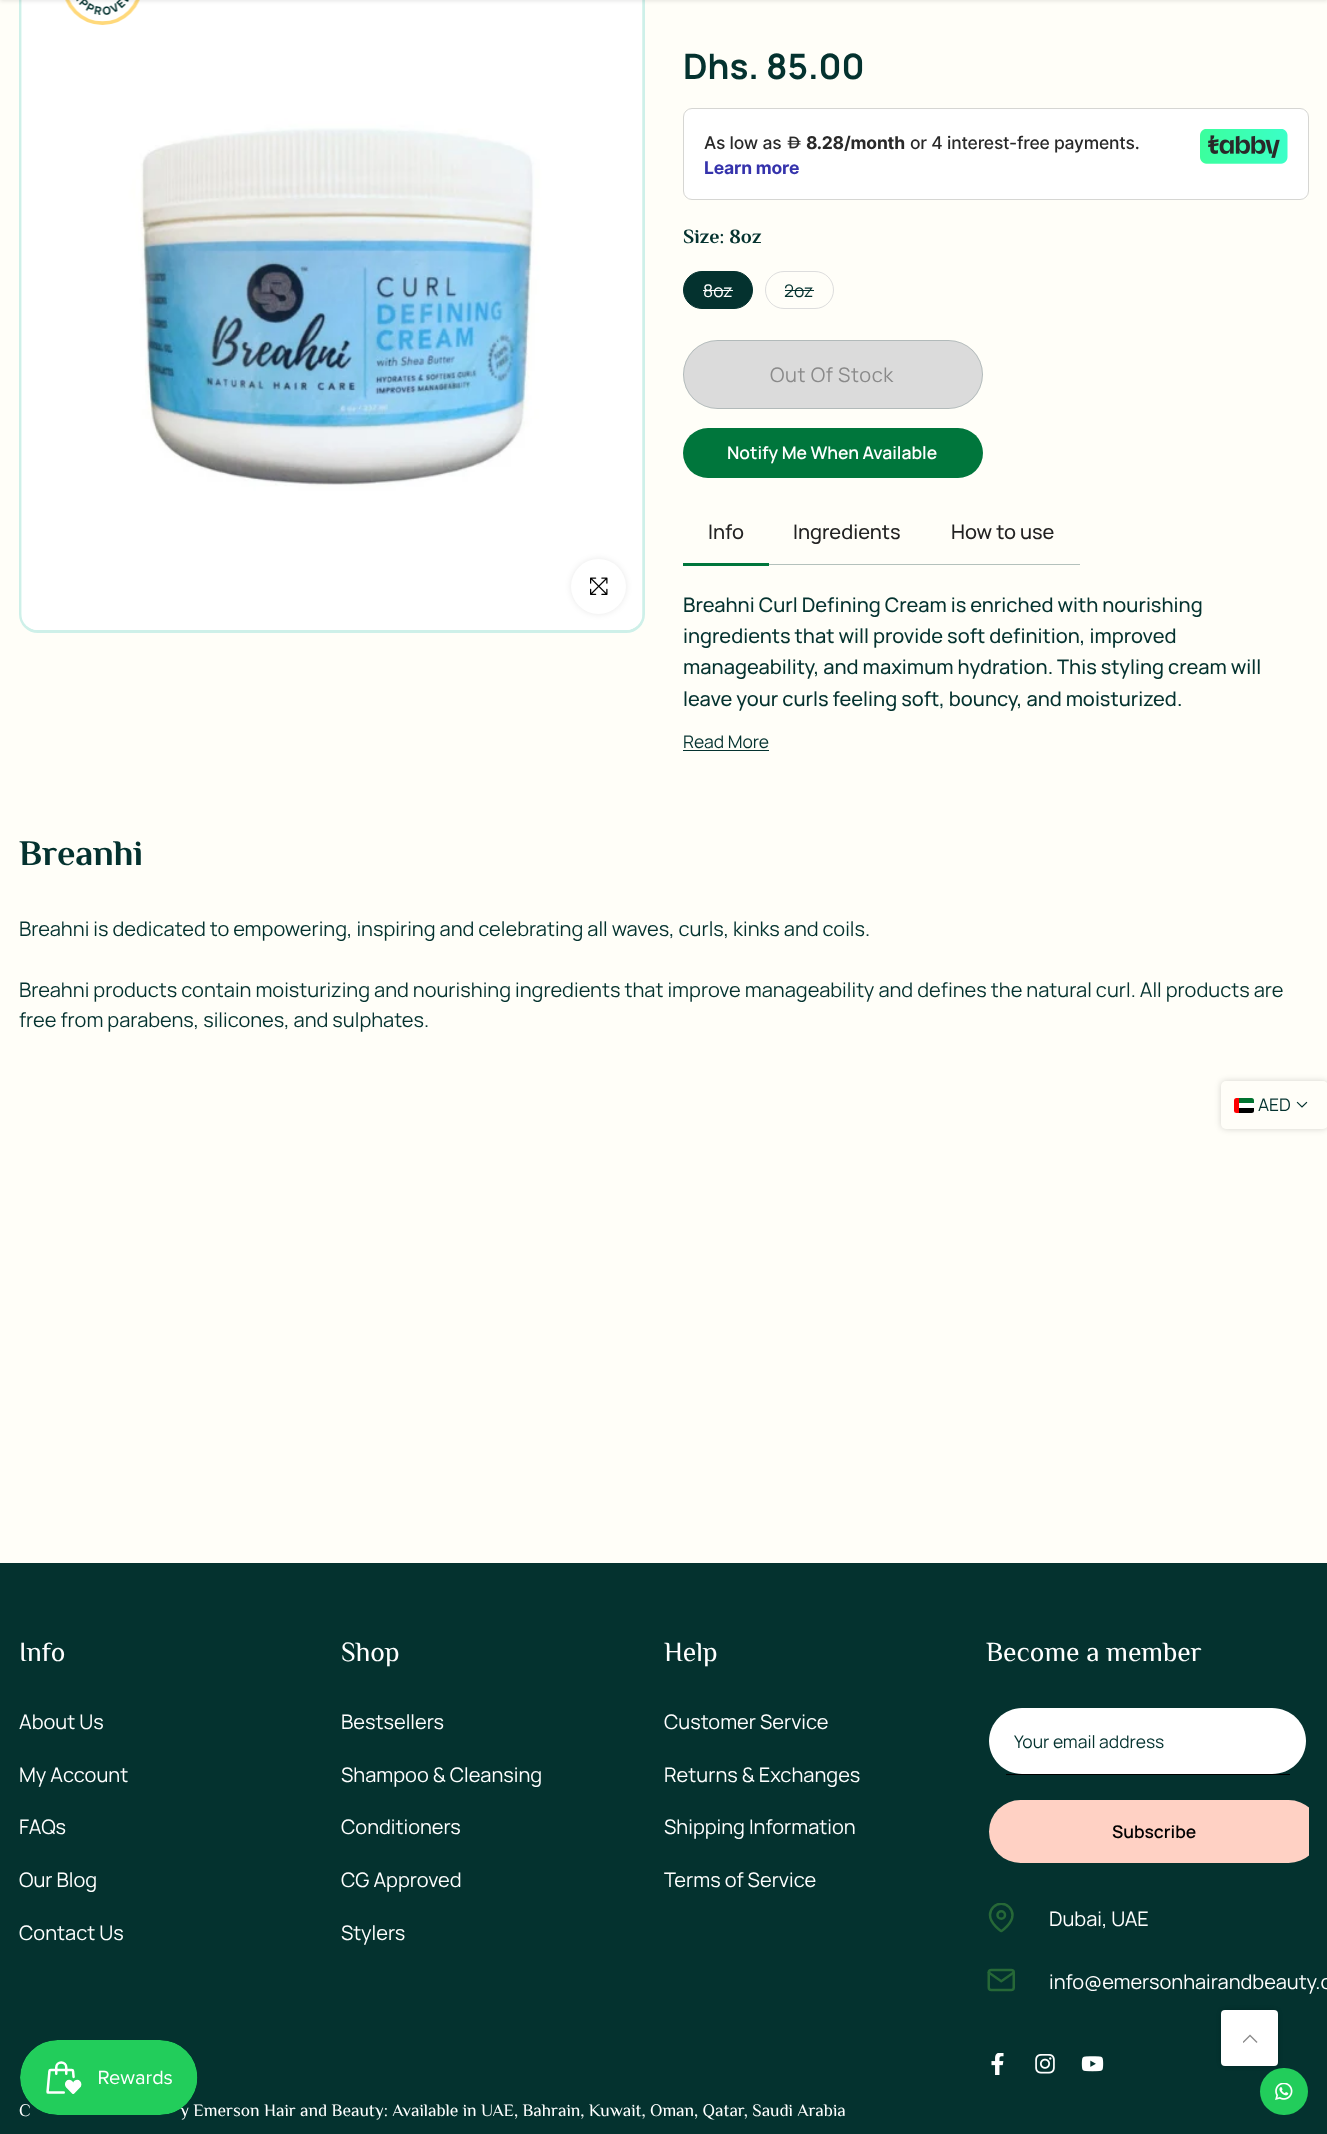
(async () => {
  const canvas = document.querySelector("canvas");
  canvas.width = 1327;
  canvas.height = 2134;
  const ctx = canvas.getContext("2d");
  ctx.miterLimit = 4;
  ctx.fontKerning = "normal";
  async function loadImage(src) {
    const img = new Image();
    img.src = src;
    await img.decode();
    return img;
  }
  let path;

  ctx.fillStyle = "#fffef8";
  ctx.fillRect(0, 0, 1327, 2134);
  ctx.beginPath();
  ctx.roundRect(20.5, -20.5, 623, 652, 17.5);
  ctx.strokeStyle = "#cef0e9";
  ctx.lineWidth = 3;
  ctx.stroke();
  ctx.drawImage(await loadImage("img/1.png"), 21, 0, 622, 630);
  ctx.drawImage(await loadImage("img/2.png"), 65, 0, 75, 25);
  ctx.fillStyle = "rgba(0, 0, 0, 0.1)";
  ctx.filter = "blur(2px)";
  ctx.beginPath();
  ctx.rect(0, -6, 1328, 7);
  ctx.fill();
  ctx.filter = "none";
  ctx.fillStyle = "rgba(0, 0, 0, 0.09)";
  ctx.filter = "blur(3px)";
  ctx.beginPath();
  ctx.roundRect(571, 559, 55, 55, 27.5);
  ctx.fill();
  ctx.filter = "none";
  ctx.fillStyle = "#ffffff";
  ctx.beginPath();
  ctx.arc(598.5, 586.5, 27.5, 0, Math.PI * 2);
  ctx.fill();
  ctx.drawImage(await loadImage("img/3.png"), 590, 577, 18, 18);
  ctx.beginPath();
  ctx.roundRect(683.5, 108.5, 625, 91, 8.5);
  ctx.fill();
  ctx.strokeStyle = "#d6d6d3";
  ctx.lineWidth = 1;
  ctx.stroke();
  ctx.drawImage(await loadImage("img/4.png"), 787, 136, 14, 13);
  ctx.drawImage(await loadImage("img/5.png"), 1200, 129, 88, 35);
  ctx.fillStyle = "#04322f";
  ctx.beginPath();
  ctx.roundRect(683.5, 271.5, 69, 37, 18.5);
  ctx.fill();
  ctx.strokeStyle = "#04322f";
  ctx.stroke();
  ctx.fillStyle = "#ffffff";
  ctx.fillRect(703, 290, 30, 1);
  ctx.beginPath();
  ctx.roundRect(765.5, 271.5, 68, 37, 18.5);
  ctx.strokeStyle = "#dddddd";
  ctx.stroke();
  ctx.fillStyle = "#04322f";
  ctx.fillRect(785, 290, 29, 1);
  ctx.fillStyle = "#dbdbdb";
  ctx.beginPath();
  ctx.roundRect(683, 340, 300, 69, 34.5);
  ctx.fill();
  ctx.beginPath();
  ctx.roundRect(683.5, 340.5, 299, 68, 34);
  ctx.strokeStyle = "rgba(4, 50, 47, 0.19)";
  ctx.stroke();
  ctx.fillStyle = "#00763c";
  ctx.beginPath();
  ctx.roundRect(683, 428, 300, 50, 25);
  ctx.fill();
  for (const [x, y, w, h, color] of [
    [683, 563, 86, 3, "#00763c"],
    [769, 564, 311, 1, "#b4c1bc"],
    [683, 750, 86, 1, "#04322f"],
  ]) {
    ctx.fillStyle = color;
    ctx.fillRect(x, y, w, h);
  }
  ctx.fillStyle = "rgba(0, 0, 0, 0.17)";
  ctx.filter = "blur(3px)";
  ctx.beginPath();
  ctx.roundRect(1221, 1081, 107, 48, 5);
  ctx.fill();
  ctx.filter = "none";
  ctx.fillStyle = "#fffef8";
  ctx.beginPath();
  ctx.roundRect(1221, 1081, 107, 48, 5);
  ctx.fill();
  ctx.fillStyle = "#ff0000";
  ctx.beginPath();
  ctx.roundRect(1234, 1098, 5, 15, [2.5, 0, 0, 2.5]);
  ctx.fill();
  ctx.fillStyle = "#000000";
  ctx.beginPath();
  ctx.roundRect(1239, 1108, 15, 5, [0, 0, 2.5, 0]);
  ctx.fill();
  ctx.fillStyle = "#ffffff";
  ctx.fillRect(1239, 1103, 15, 5);
  ctx.fillStyle = "#00732f";
  ctx.beginPath();
  ctx.roundRect(1239, 1098, 15, 5, [0, 2.5, 0, 0]);
  ctx.fill();
  path = new Path2D("M1306.5 1102.5L1302 1107L1297.5 1102.5");
  ctx.strokeStyle = "#04322f";
  ctx.lineWidth = 1.2;
  ctx.lineCap = "square";
  ctx.stroke(path);
  ctx.fillStyle = "#04322f";
  ctx.fillRect(0, 1563, 1327, 571);
  ctx.fillStyle = "#ffffff";
  path = new Path2D("M1022 1708H1272C1291 1708 1306 1723 1306 1741C1306 1759 1291 1774 1272 1774H1022C1004 1774 989 1759 989 1741C989 1723 1004 1708 1022 1708Z");
  ctx.fill(path);
  ctx.fillStyle = "#000000";
  ctx.fillRect(1006, 1774, 284, 1);
  ctx.save();
  ctx.beginPath();
  ctx.rect(986, 1705, 323, 160);
  ctx.clip();
  ctx.fillStyle = "#ffd1c4";
  ctx.beginPath();
  ctx.roundRect(989, 1800, 331, 63, 31.5);
  ctx.fill();
  ctx.restore();
  ctx.drawImage(await loadImage("img/6.png"), 988, 1903, 26, 30);
  ctx.drawImage(await loadImage("img/7.png"), 987, 1968, 28, 24);
  ctx.drawImage(await loadImage("img/8.png"), 991, 2053, 13, 22);
  ctx.drawImage(await loadImage("img/9.png"), 1035, 2054, 20, 20);
  ctx.drawImage(await loadImage("img/10.png"), 1081, 2056, 23, 16);
  ctx.fillStyle = "rgba(0, 0, 0, 0.2)";
  ctx.filter = "blur(2px)";
  ctx.beginPath();
  ctx.roundRect(1221, 2010, 57, 56, 4);
  ctx.fill();
  ctx.filter = "none";
  ctx.fillStyle = "#ffffff";
  ctx.beginPath();
  ctx.roundRect(1221, 2010, 57, 56, 4);
  ctx.fill();
  ctx.drawImage(await loadImage("img/12.png"), 1243, 2034, 15, 9);
  ctx.fillStyle = "#22cd5b";
  ctx.beginPath();
  ctx.roundRect(1260, 2068, 48, 47, 23.5);
  ctx.fill();
  ctx.drawImage(await loadImage("img/13.png"), 1275, 2083, 18, 17);
  ctx.font = "bold 35px Manrope";
  ctx.fillStyle = "#04322f";
  ctx.fillText("Dhs. 85.00", 683, 79);
  ctx.letterSpacing = "-0.2px";
  ctx.font = "500 17.5px Inter";
  ctx.fillStyle = "#292929";
  ctx.fillText("As low as", 704, 149);
  ctx.font = "bold 17.5px Inter";
  ctx.fillText("8.28/month", 806, 149);
  ctx.font = "500 17.5px Inter";
  ctx.fillText("or 4 interest-free payments.", 910, 149);
  ctx.font = "bold 17.5px Inter";
  ctx.fillStyle = "#3533ac";
  ctx.fillText("Learn more", 704, 174);
  ctx.letterSpacing = "0px";
  ctx.font = "bold 20px El Messiri";
  ctx.fillStyle = "#04322f";
  ctx.fillText("Size: 8oz", 683, 243);
  ctx.font = "200 17.5px Manrope";
  ctx.fillStyle = "#ffffff";
  ctx.fillText("8oz", 703, 297);
  ctx.fillStyle = "#04322f";
  ctx.fillText("2oz", 784, 297);
  ctx.letterSpacing = "0.6px";
  ctx.font = "200 20px Manrope";
  ctx.fillStyle = "#8a8a8a";
  ctx.fillText("Out Of Stock", 770, 382);
  ctx.letterSpacing = "0px";
  ctx.font = "600 17.5px Manrope";
  ctx.fillStyle = "#ffffff";
  ctx.fillText("Notify Me When Available", 727, 459);
  ctx.font = "500 20px Manrope";
  ctx.fillStyle = "#222222";
  for (const [text, x, y] of [
    ["Info", 708, 539],
    ["Ingredients", 793, 539],
    ["How to use", 951, 539],
  ]) {
    ctx.fillText(text, x, y);
  }
  ctx.fillStyle = "#04322f";
  for (const [text, x, y] of [
    ["Breahni Curl Defining Cream is enriched with nourishing", 683, 612],
    ["ingredients that will provide soft definition, improved", 683, 643],
    ["manageability, and maximum hydration. This styling cream will", 683, 674],
    ["leave your curls feeling soft, bouncy, and moisturized.", 683, 706],
  ]) {
    ctx.fillText(text, x, y);
  }
  ctx.font = "200 17.5px Manrope";
  ctx.fillText("Read More", 683, 748);
  ctx.font = "bold 36px El Messiri";
  ctx.fillText("Breanhi", 19, 865);
  ctx.font = "200 20px Manrope";
  for (const [text, x, y] of [
    ["Breahni is dedicated to empowering, inspiring and celebrating all waves, curls, kinks and coils.", 19, 936],
    ["Breahni products contain moisturizing and nourishing ingredients that improve manageability and defines the natural curl. All products are", 19, 997],
    ["free from parabens, silicones, and sulphates.", 19, 1027],
  ]) {
    ctx.fillText(text, x, y);
  }
  ctx.font = "200 17.5px Manrope";
  ctx.fillText("AED", 1258, 1111);
  ctx.font = "27.5px El Messiri";
  ctx.fillStyle = "#ffffff";
  ctx.fillText("Info", 19, 1661);
  ctx.font = "200 20px Manrope";
  for (const [text, x, y] of [
    ["About Us", 19, 1729],
    ["My Account", 19, 1782],
    ["FAQs", 19, 1834],
    ["Our Blog", 19, 1887],
    ["Contact Us", 19, 1940],
  ]) {
    ctx.fillText(text, x, y);
  }
  ctx.font = "27.5px El Messiri";
  ctx.fillText("Shop", 341, 1661);
  ctx.font = "200 20px Manrope";
  for (const [text, x, y] of [
    ["Bestsellers", 341, 1729],
    ["Shampoo & Cleansing", 341, 1782],
    ["Conditioners", 341, 1834],
    ["CG Approved", 341, 1887],
    ["Stylers", 341, 1940],
  ]) {
    ctx.fillText(text, x, y);
  }
  ctx.font = "27.5px El Messiri";
  ctx.fillText("Help", 664, 1661);
  ctx.font = "200 20px Manrope";
  for (const [text, x, y] of [
    ["Customer Service", 664, 1729],
    ["Returns & Exchanges", 664, 1782],
    ["Shipping Information", 664, 1834],
    ["Terms of Service", 664, 1887],
  ]) {
    ctx.fillText(text, x, y);
  }
  ctx.font = "27.5px El Messiri";
  ctx.fillText("Become a member", 986, 1661);
  ctx.font = "200 17.5px Manrope";
  ctx.fillStyle = "#04322f";
  ctx.fillText("Your email address", 1014, 1748);
  ctx.font = "600 17.5px Manrope";
  ctx.fillStyle = "#000000";
  ctx.fillText("Subscribe", 1112, 1838);
  ctx.font = "200 20px Manrope";
  ctx.fillStyle = "#ffffff";
  ctx.fillText("Dubai, UAE", 1049, 1926);
  ctx.fillText("info@emersonhairandbeauty.c", 1049, 1989);
  ctx.font = "17.5px El Messiri";
  ctx.fillText("C", 19, 2116);
  ctx.fillText("y Emerson Hair and Beauty: Available in UAE, Bahrain, Kuwait, Oman, Qatar, Saudi Arabia", 180, 2116);
  ctx.drawImage(await loadImage("img/11.png"), 20, 2040, 178, 75);
})();
